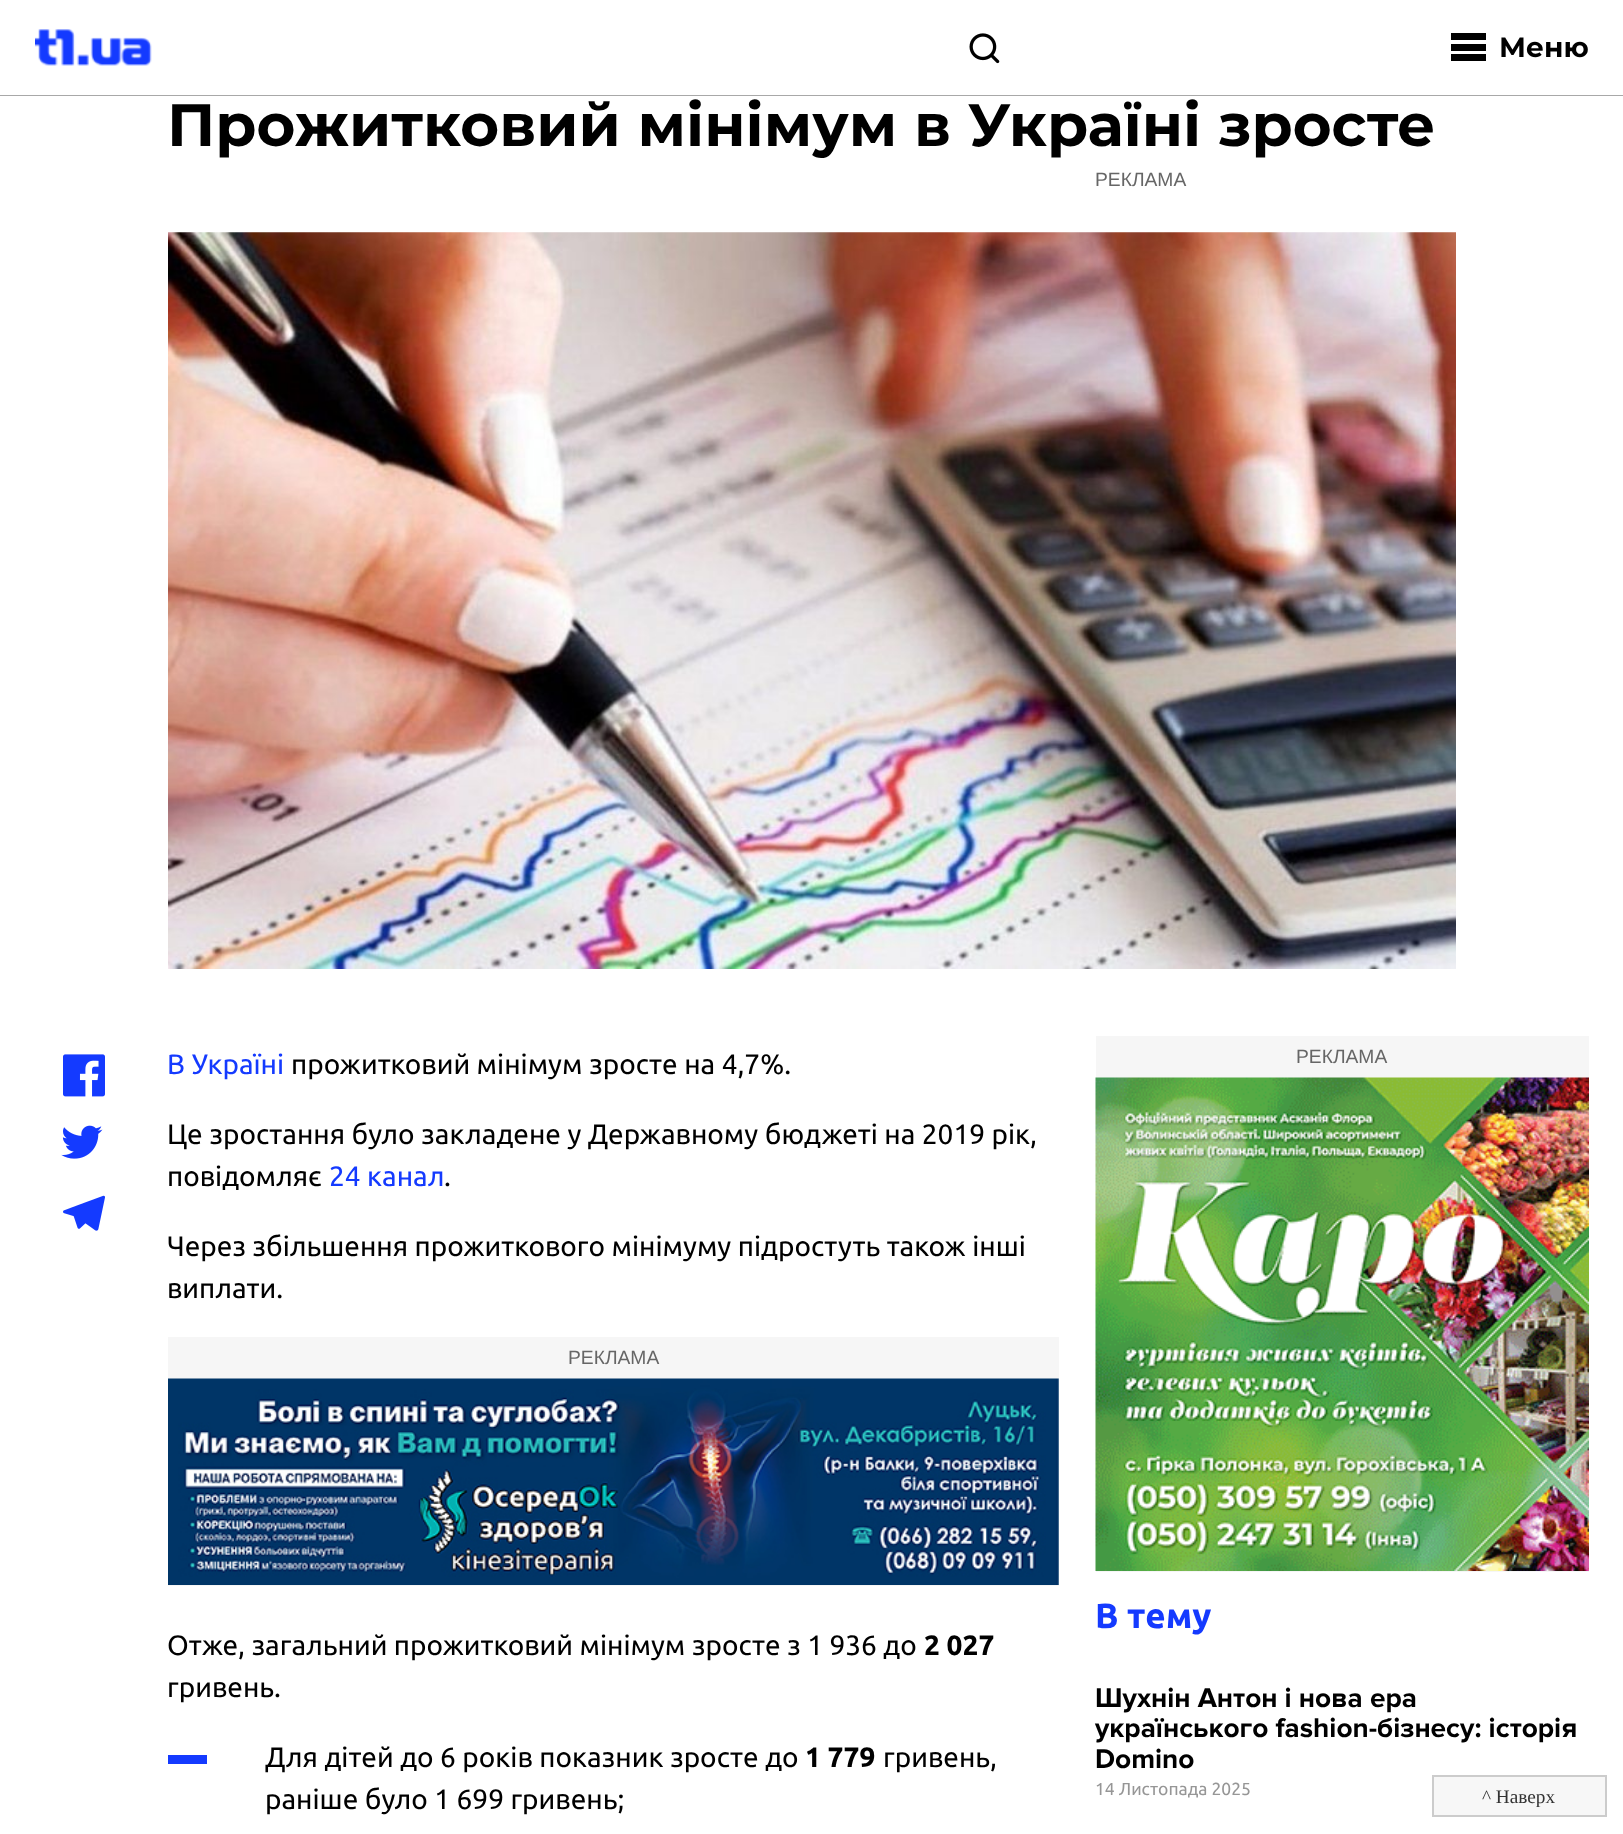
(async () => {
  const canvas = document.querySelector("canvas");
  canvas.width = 1623;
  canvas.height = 1834;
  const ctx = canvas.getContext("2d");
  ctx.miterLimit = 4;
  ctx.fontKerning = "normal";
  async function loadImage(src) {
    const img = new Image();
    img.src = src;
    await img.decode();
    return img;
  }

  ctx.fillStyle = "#ffffff";
  ctx.fillRect(0, 0, 1623, 1834);
  ctx.fillStyle = "#a8a8a8";
  ctx.fillRect(0, 95, 1623, 1);
  ctx.drawImage(await loadImage("img/1.png"), 35, 29, 117, 37);
  ctx.drawImage(await loadImage("img/2.png"), 969, 33, 31, 31);
  for (const [x, y, w, h, color] of [
    [1451, 33, 35, 7, "#000000"],
    [1451, 44, 35, 7, "#000000"],
    [1451, 54, 35, 7, "#000000"],
  ]) {
    ctx.fillStyle = color;
    ctx.fillRect(x, y, w, h);
  }
  ctx.drawImage(await loadImage("img/3.png"), 168, 232, 1288, 737);
  ctx.drawImage(await loadImage("img/4.png"), 63, 1054, 42, 43);
  ctx.drawImage(await loadImage("img/5.png"), 61, 1125, 42, 34);
  ctx.drawImage(await loadImage("img/6.png"), 63, 1195, 42, 36);
  ctx.fillStyle = "#f6f6f6";
  ctx.fillRect(168, 1337, 891, 249);
  ctx.drawImage(await loadImage("img/7.png"), 168, 1378, 891, 207);
  ctx.fillStyle = "#143aff";
  ctx.fillRect(168, 1755, 39, 9);
  ctx.fillStyle = "#f6f6f6";
  ctx.fillRect(1096, 1036, 493, 536);
  ctx.drawImage(await loadImage("img/8.png"), 1095, 1077, 494, 494);
  ctx.fillStyle = "#f7f7f7";
  ctx.beginPath();
  ctx.rect(1433, 1776, 173, 40);
  ctx.fill();
  ctx.strokeStyle = "#cccccc";
  ctx.lineWidth = 2;
  ctx.stroke();
  ctx.font = "bold 28px Montserrat";
  ctx.fillStyle = "#000000";
  ctx.fillText("Меню", 1499, 57);
  ctx.font = "bold 59.5px Montserrat";
  ctx.fillText("Прожитковий мінімум в Україні зросте", 167, 146);
  ctx.font = "28px Ubuntu";
  ctx.fillStyle = "#143aff";
  ctx.fillText("В Україні", 167, 1074);
  ctx.fillStyle = "#000000";
  for (const [text, x, y] of [
    ["прожитковий мінімум зросте на 4,7%.", 291, 1074],
    ["Це зростання було закладене у Державному бюджеті на 2019 рік,", 167, 1144],
    ["повідомляє", 167, 1186],
  ]) {
    ctx.fillText(text, x, y);
  }
  ctx.fillStyle = "#143aff";
  ctx.fillText("24 канал", 329, 1186);
  ctx.fillStyle = "#000000";
  for (const [text, x, y] of [
    [".", 444, 1186],
    ["Через збільшення прожиткового мінімуму підростуть також інші", 167, 1256],
    ["виплати.", 167, 1298],
  ]) {
    ctx.fillText(text, x, y);
  }
  ctx.font = "19.25px Liberation Sans";
  ctx.fillStyle = "#666666";
  ctx.fillText("РЕКЛАМА", 568, 1364);
  ctx.font = "28px Ubuntu";
  ctx.fillStyle = "#000000";
  ctx.fillText("Отже, загальний прожитковий мінімум зросте з 1 936 до", 167, 1655);
  ctx.font = "bold 28px Ubuntu";
  ctx.fillText("2 027", 924, 1655);
  ctx.font = "28px Ubuntu";
  ctx.fillText("гривень.", 167, 1697);
  ctx.fillText("Для дітей до 6 років показник зросте до", 265, 1767);
  ctx.font = "bold 28px Ubuntu";
  ctx.fillText("1 779", 805, 1767);
  ctx.font = "28px Ubuntu";
  ctx.fillText("гривень,", 883, 1767);
  ctx.fillText("раніше було 1 699 гривень;", 265, 1809);
  ctx.font = "19.25px Liberation Sans";
  ctx.fillStyle = "#666666";
  ctx.fillText("РЕКЛАМА", 1095, 186);
  ctx.fillText("РЕКЛАМА", 1296, 1063);
  ctx.font = "bold 35px Ubuntu";
  ctx.fillStyle = "#143aff";
  ctx.fillText("В тему", 1095, 1628);
  ctx.font = "bold 28px Proxima Nova";
  ctx.fillStyle = "#000000";
  for (const [text, x, y] of [
    ["Шухнін Антон і нова ера", 1095, 1707],
    ["українського fashion-бізнесу: історія", 1095, 1737],
    ["Domino", 1095, 1768],
  ]) {
    ctx.fillText(text, x, y);
  }
  ctx.font = "17.5px Ubuntu";
  ctx.fillStyle = "#969696";
  ctx.fillText("14 Листопада 2025", 1095, 1795);
  ctx.font = "19.25px Liberation Serif";
  ctx.fillStyle = "#333333";
  ctx.fillText("^ Наверх", 1482, 1803);
})();
